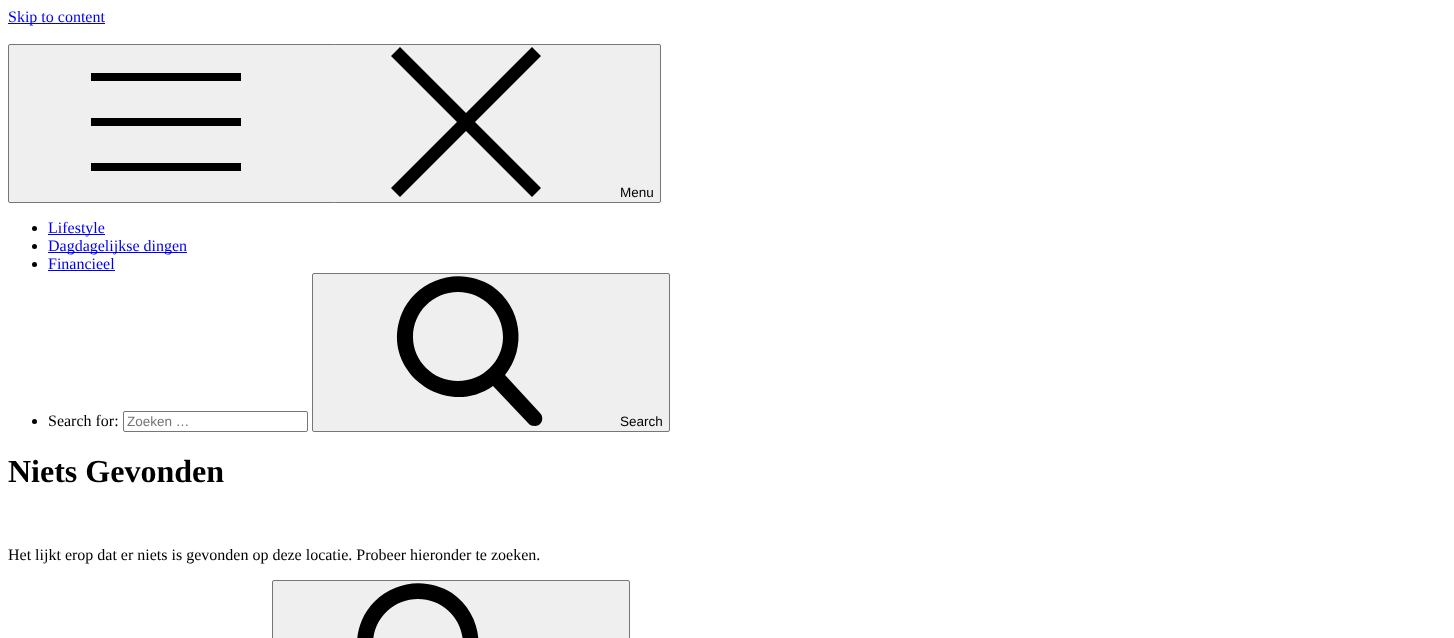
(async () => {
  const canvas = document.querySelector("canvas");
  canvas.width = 1454;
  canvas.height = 638;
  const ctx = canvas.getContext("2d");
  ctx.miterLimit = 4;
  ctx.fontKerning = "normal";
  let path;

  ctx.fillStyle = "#ffffff";
  ctx.fillRect(0, 0, 1454, 638);
  ctx.fillStyle = "#0000ee";
  ctx.fillRect(8, 23, 97, 1);
  ctx.fillStyle = "#efefef";
  ctx.beginPath();
  ctx.roundRect(8.5, 44.5, 652, 158, 1.5);
  ctx.fill();
  ctx.strokeStyle = "#767676";
  ctx.stroke();
  ctx.fillStyle = "#000000";
  ctx.fillRect(91, 73, 150, 8);
  path = new Path2D("M541 56L532 47L466 113L400 47L391 56L457 122L391 188L400 197L466 131L532 197L541 188L475 122Z");
  ctx.fill(path);
  ctx.fillRect(91, 118, 150, 8);
  ctx.fillRect(91, 163, 150, 8);
  ctx.beginPath();
  ctx.arc(34.5, 228.5, 2.5, 0, Math.PI * 2);
  ctx.fill();
  ctx.fillStyle = "#0000ee";
  ctx.fillRect(48, 234, 57, 1);
  ctx.fillStyle = "#000000";
  ctx.beginPath();
  ctx.arc(34.5, 246.5, 2.5, 0, Math.PI * 2);
  ctx.fill();
  ctx.fillStyle = "#0000ee";
  ctx.fillRect(48, 252, 139, 1);
  ctx.fillStyle = "#000000";
  ctx.beginPath();
  ctx.arc(34.5, 264.5, 2.5, 0, Math.PI * 2);
  ctx.fill();
  ctx.fillStyle = "#0000ee";
  ctx.fillRect(48, 270, 67, 1);
  ctx.fillStyle = "#000000";
  ctx.beginPath();
  ctx.arc(34.5, 421.5, 2.5, 0, Math.PI * 2);
  ctx.fill();
  ctx.beginPath();
  ctx.roundRect(123.5, 411.5, 184, 20, 1.5);
  ctx.stroke();
  ctx.fillStyle = "#efefef";
  ctx.beginPath();
  ctx.roundRect(312.5, 273.5, 357, 158, 1.5);
  ctx.fill();
  ctx.stroke();
  ctx.fillStyle = "#000000";
  path = new Path2D("M540 413L505 375C527 348 522 307 492 286C475 275 453 273 435 281C420 287 408 299 402 313C378 370 445 420 493 386L529 424C530 425 532 426 535 426C537 426 539 425 540 424C543 421 543 416 540 413ZM458 292C483 292 503 312 503 337C503 361 483 381 458 381C433 381 413 361 413 337C413 312 433 292 458 292Z");
  ctx.fill(path);
  ctx.fillStyle = "#efefef";
  ctx.beginPath();
  ctx.roundRect(272.5, 580.5, 357, 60, 1.5);
  ctx.fill();
  ctx.stroke();
  ctx.fillStyle = "#000000";
  path = new Path2D("M500 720L465 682C487 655 482 614 452 593C435 582 413 580 395 588C380 594 368 606 362 620C338 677 405 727 453 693L489 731C490 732 492 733 495 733C497 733 499 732 500 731C503 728 503 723 500 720ZM418 599C443 599 463 619 463 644C463 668 443 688 418 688C393 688 373 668 373 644C373 619 393 599 418 599Z");
  ctx.fill(path);
  ctx.font = "16px Liberation Serif";
  ctx.fillStyle = "#0000ee";
  ctx.fillText("Skip to content", 8, 22);
  ctx.font = "13.5px Liberation Sans";
  ctx.fillStyle = "#000000";
  ctx.fillText("Menu", 620, 197);
  ctx.font = "16px Liberation Serif";
  ctx.fillStyle = "#0000ee";
  for (const [text, x, y] of [
    ["Lifestyle", 48, 233],
    ["Dagdagelijkse dingen", 48, 251],
    ["Financieel", 48, 269],
  ]) {
    ctx.fillText(text, x, y);
  }
  ctx.fillStyle = "#000000";
  ctx.fillText("Search for:", 48, 426);
  ctx.font = "13.5px Liberation Sans";
  ctx.fillStyle = "#757575";
  ctx.fillText("Zoeken …", 127, 426);
  ctx.fillStyle = "#000000";
  ctx.fillText("Search", 620, 426);
  ctx.font = "bold 32px Liberation Serif";
  ctx.fillText("Niets Gevonden", 8, 482);
  ctx.font = "16px Liberation Serif";
  ctx.fillText("Het lijkt erop dat er niets is gevonden op deze locatie. Probeer hieronder te zoeken.", 8, 560);
})();
